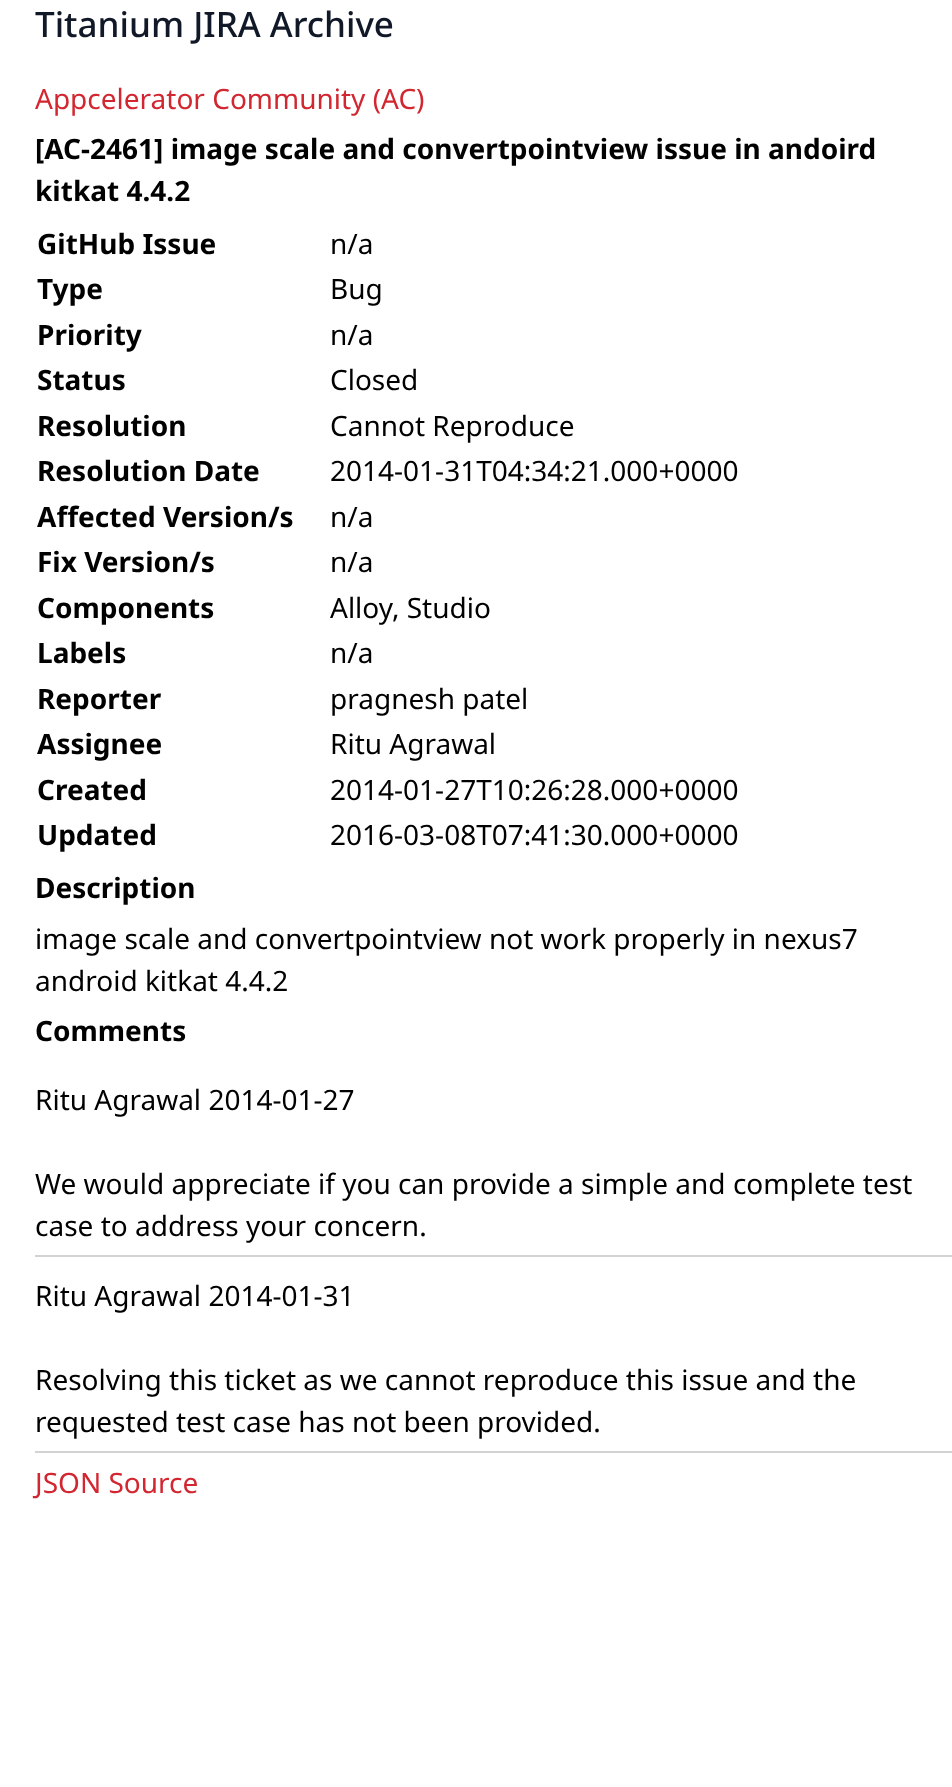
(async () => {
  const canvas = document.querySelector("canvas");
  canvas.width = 952;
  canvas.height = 1787;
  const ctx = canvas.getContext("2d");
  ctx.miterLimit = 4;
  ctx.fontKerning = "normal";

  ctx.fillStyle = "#ffffff";
  ctx.fillRect(0, 0, 952, 1787);
  ctx.fillStyle = "#d3d3d3";
  ctx.fillRect(35, 1255, 917, 2);
  ctx.fillRect(35, 1451, 917, 2);
  ctx.font = "500 35px Noto Sans";
  ctx.fillStyle = "#111827";
  ctx.fillText("Titanium JIRA Archive", 35, 37);
  ctx.font = "28px Noto Sans";
  ctx.fillStyle = "#d22630";
  ctx.fillText("Appcelerator Community (AC)", 35, 109);
  ctx.font = "bold 28px Noto Sans";
  ctx.fillStyle = "#000000";
  for (const [text, x, y] of [
    ["[AC-2461] image scale and convertpointview issue in andoird", 35, 159],
    ["kitkat 4.4.2", 35, 201],
    ["GitHub Issue", 37, 254],
  ]) {
    ctx.fillText(text, x, y);
  }
  ctx.font = "28px Noto Sans";
  ctx.fillText("n/a", 330, 254);
  ctx.font = "bold 28px Noto Sans";
  ctx.fillText("Type", 37, 299);
  ctx.font = "28px Noto Sans";
  ctx.fillText("Bug", 330, 299);
  ctx.font = "bold 28px Noto Sans";
  ctx.fillText("Priority", 37, 345);
  ctx.font = "28px Noto Sans";
  ctx.fillText("n/a", 330, 345);
  ctx.font = "bold 28px Noto Sans";
  ctx.fillText("Status", 37, 390);
  ctx.font = "28px Noto Sans";
  ctx.fillText("Closed", 330, 390);
  ctx.font = "bold 28px Noto Sans";
  ctx.fillText("Resolution", 37, 436);
  ctx.font = "28px Noto Sans";
  ctx.fillText("Cannot Reproduce", 330, 436);
  ctx.font = "bold 28px Noto Sans";
  ctx.fillText("Resolution Date", 37, 481);
  ctx.font = "28px Noto Sans";
  ctx.fillText("2014-01-31T04:34:21.000+0000", 330, 481);
  ctx.font = "bold 28px Noto Sans";
  ctx.fillText("Affected Version/s", 37, 527);
  ctx.font = "28px Noto Sans";
  ctx.fillText("n/a", 330, 527);
  ctx.font = "bold 28px Noto Sans";
  ctx.fillText("Fix Version/s", 37, 572);
  ctx.font = "28px Noto Sans";
  ctx.fillText("n/a", 330, 572);
  ctx.font = "bold 28px Noto Sans";
  ctx.fillText("Components", 37, 618);
  ctx.font = "28px Noto Sans";
  ctx.fillText("Alloy, Studio", 330, 618);
  ctx.font = "bold 28px Noto Sans";
  ctx.fillText("Labels", 37, 663);
  ctx.font = "28px Noto Sans";
  ctx.fillText("n/a", 330, 663);
  ctx.font = "bold 28px Noto Sans";
  ctx.fillText("Reporter", 37, 709);
  ctx.font = "28px Noto Sans";
  ctx.fillText("pragnesh patel", 330, 709);
  ctx.font = "bold 28px Noto Sans";
  ctx.fillText("Assignee", 37, 754);
  ctx.font = "28px Noto Sans";
  ctx.fillText("Ritu Agrawal", 330, 754);
  ctx.font = "bold 28px Noto Sans";
  ctx.fillText("Created", 37, 800);
  ctx.font = "28px Noto Sans";
  ctx.fillText("2014-01-27T10:26:28.000+0000", 330, 800);
  ctx.font = "bold 28px Noto Sans";
  ctx.fillText("Updated", 37, 845);
  ctx.font = "28px Noto Sans";
  ctx.fillText("2016-03-08T07:41:30.000+0000", 330, 845);
  ctx.font = "bold 28px Noto Sans";
  ctx.fillText("Description", 35, 898);
  ctx.font = "28px Noto Sans";
  ctx.fillText("image scale and convertpointview not work properly in nexus7", 35, 949);
  ctx.fillText("android kitkat 4.4.2", 35, 991);
  ctx.font = "bold 28px Noto Sans";
  ctx.fillText("Comments", 35, 1041);
  ctx.font = "28px Noto Sans";
  for (const [text, x, y] of [
    ["Ritu Agrawal 2014-01-27", 35, 1110],
    ["We would appreciate if you can provide a simple and complete test", 35, 1194],
    ["case to address your concern.", 35, 1236],
    ["Ritu Agrawal 2014-01-31", 35, 1306],
    ["Resolving this ticket as we cannot reproduce this issue and the", 35, 1390],
    ["requested test case has not been provided.", 35, 1432],
  ]) {
    ctx.fillText(text, x, y);
  }
  ctx.fillStyle = "#d22630";
  ctx.fillText("JSON Source", 35, 1493);
})();
